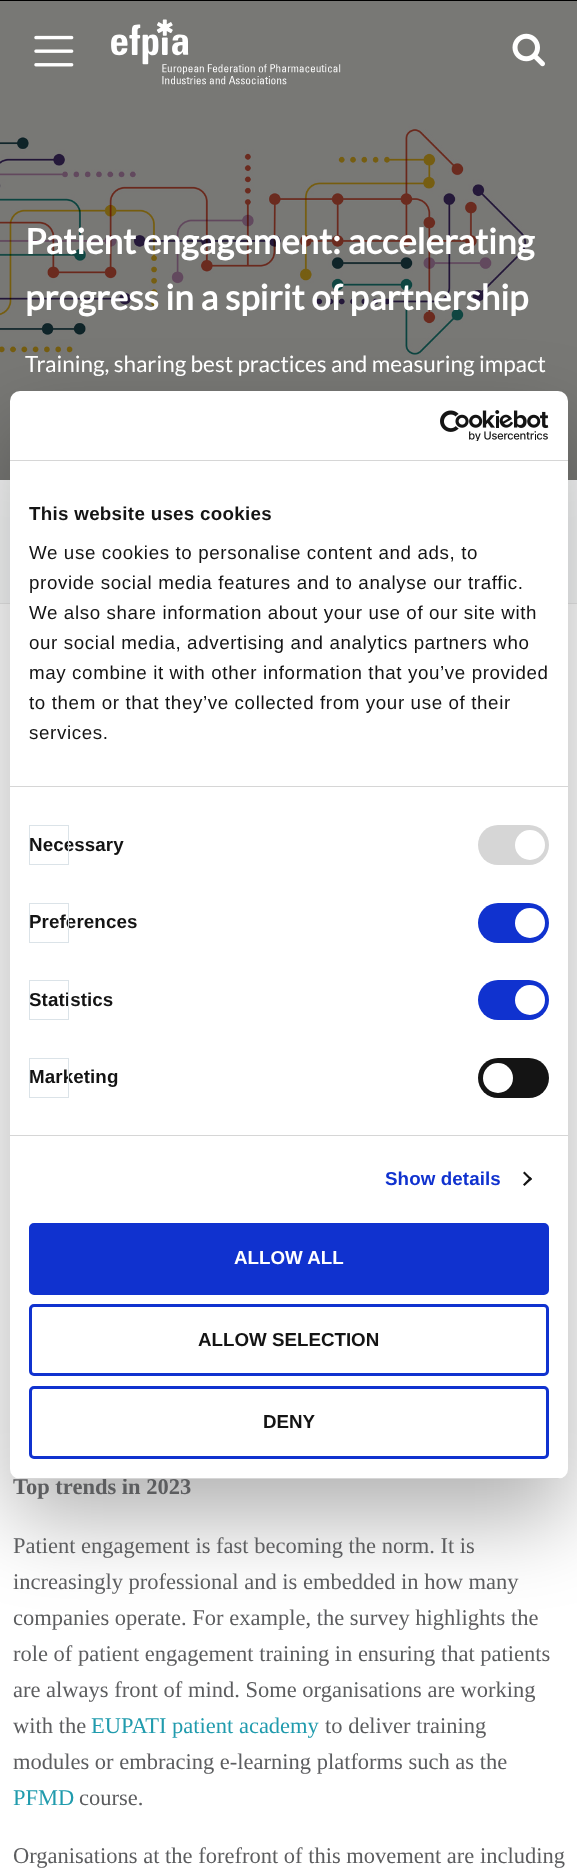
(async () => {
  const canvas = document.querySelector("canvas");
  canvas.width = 577;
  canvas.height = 1868;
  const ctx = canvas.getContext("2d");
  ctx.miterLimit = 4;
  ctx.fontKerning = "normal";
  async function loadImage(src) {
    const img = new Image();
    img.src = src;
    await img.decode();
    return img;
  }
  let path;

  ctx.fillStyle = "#ffffff";
  ctx.fillRect(0, 0, 577, 1868);
  ctx.fillStyle = "#000000";
  ctx.fillRect(0, 0, 577, 1);
  ctx.drawImage(await loadImage("img/4.png"), 0, 1, 577, 479);
  ctx.drawImage(await loadImage("img/1.png"), 34, 35, 40, 32);
  ctx.drawImage(await loadImage("img/2.png"), 111, 19, 230, 66);
  ctx.drawImage(await loadImage("img/3.png"), 512, 33, 33, 34);
  ctx.fillStyle = "#f7f8f9";
  ctx.fillRect(0, 480, 577, 123);
  ctx.fillStyle = "#e9e9e9";
  ctx.fillRect(0, 603, 577, 1);
  ctx.fillStyle = "rgba(0, 0, 0, 0.3)";
  ctx.filter = "blur(42.5px)";
  ctx.beginPath();
  ctx.roundRect(10, 431, 558, 1088, 10);
  ctx.fill();
  ctx.filter = "none";
  ctx.font = "bold 35px Lato";
  ctx.fillStyle = "#ffffff";
  ctx.fillText("Patient engagement: accelerating", 25, 254);
  ctx.fillText("progress in a spirit of partnership", 25, 310);
  ctx.font = "22.5px Lato";
  ctx.fillText("Training, sharing best practices and measuring impact", 25, 372);
  ctx.font = "bold 22.5px Liberation Serif";
  ctx.fillStyle = "#5c5d5f";
  ctx.fillText("Top trends in 2023", 13, 1494);
  ctx.font = "22.5px Liberation Serif";
  for (const [text, x, y] of [
    ["Patient engagement is fast becoming the norm. It is", 13, 1553],
    ["increasingly professional and is embedded in how many", 13, 1589],
    ["companies operate. For example, the survey highlights the", 13, 1625],
    ["role of patient engagement training in ensuring that patients", 13, 1661],
    ["are always front of mind. Some organisations are working", 13, 1697],
    ["with the", 13, 1733],
  ]) {
    ctx.fillText(text, x, y);
  }
  ctx.fillStyle = "#209bad";
  ctx.fillText("EUPATI patient academy", 91, 1733);
  ctx.fillStyle = "#5c5d5f";
  ctx.fillText("to deliver training", 325, 1733);
  ctx.fillText("modules or embracing e-learning platforms such as the", 13, 1769);
  ctx.fillStyle = "#209bad";
  ctx.fillText("PFMD", 13, 1805);
  ctx.fillStyle = "#5c5d5f";
  ctx.fillText("course.", 79, 1805);
  ctx.fillText("Organisations at the forefront of this movement are including", 13, 1863);
  ctx.fillStyle = "#ffffff";
  ctx.beginPath();
  ctx.roundRect(10, 391, 558, 1088, 10);
  ctx.fill();
  ctx.fillStyle = "#d6d6d6";
  ctx.fillRect(10, 460, 558, 1);
  ctx.drawImage(await loadImage("img/5.png"), 440, 410, 109, 31);
  ctx.fillRect(10, 786, 558, 1);
  ctx.letterSpacing = "0.3px";
  ctx.font = "bold 18.75px Liberation Sans";
  ctx.fillStyle = "#141414";
  ctx.fillText("This website uses cookies", 29, 520);
  ctx.letterSpacing = "0.62px";
  ctx.font = "18.75px Liberation Sans";
  for (const [text, x, y] of [
    ["We use cookies to personalise content and ads, to", 29, 559],
    ["provide social media features and to analyse our traffic.", 29, 589],
    ["We also share information about your use of our site with", 29, 619],
    ["our social media, advertising and analytics partners who", 29, 649],
    ["may combine it with other information that you’ve provided", 29, 679],
    ["to them or that they’ve collected from your use of their", 29, 709],
    ["services.", 29, 739],
  ]) {
    ctx.fillText(text, x, y);
  }
  ctx.fillStyle = "#d6d6d6";
  ctx.fillRect(10, 1135, 558, 1);
  ctx.letterSpacing = "0.1px";
  ctx.font = "bold 18.75px Liberation Sans";
  ctx.fillStyle = "#141414";
  ctx.fillText("Necessary", 29, 851);
  ctx.strokeStyle = "#dbe3e8";
  ctx.strokeRect(29.5, 825.5, 39, 39);
  ctx.fillStyle = "#d6d6d6";
  ctx.beginPath();
  ctx.roundRect(478, 825, 71, 40, 20);
  ctx.fill();
  ctx.fillStyle = "#ffffff";
  ctx.beginPath();
  ctx.arc(530, 845, 15, 0, Math.PI * 2);
  ctx.fill();
  ctx.fillStyle = "#141414";
  ctx.fillText("Preferences", 29, 928);
  ctx.strokeRect(29.5, 903.5, 39, 39);
  ctx.fillStyle = "#1032cf";
  ctx.beginPath();
  ctx.roundRect(478, 903, 71, 40, 20);
  ctx.fill();
  ctx.fillStyle = "#ffffff";
  ctx.beginPath();
  ctx.arc(530, 923, 15, 0, Math.PI * 2);
  ctx.fill();
  ctx.fillStyle = "#141414";
  ctx.fillText("Statistics", 29, 1006);
  ctx.strokeRect(29.5, 980.5, 39, 39);
  ctx.fillStyle = "#1032cf";
  ctx.beginPath();
  ctx.roundRect(478, 980, 71, 40, 20);
  ctx.fill();
  ctx.fillStyle = "#ffffff";
  ctx.beginPath();
  ctx.arc(530, 1000, 15, 0, Math.PI * 2);
  ctx.fill();
  ctx.fillStyle = "#141414";
  ctx.fillText("Marketing", 29, 1083);
  ctx.strokeRect(29.5, 1058.5, 39, 39);
  ctx.beginPath();
  ctx.roundRect(478, 1058, 71, 40, 20);
  ctx.fill();
  ctx.fillStyle = "#ffffff";
  ctx.beginPath();
  ctx.arc(498, 1078, 15, 0, Math.PI * 2);
  ctx.fill();
  ctx.fillStyle = "#1032cf";
  ctx.fillText("Show details", 385, 1185);
  ctx.fillStyle = "#141414";
  path = new Path2D("M524.5 1171.5L532 1179L530.5 1180.5L523 1173Z");
  ctx.fill(path);
  path = new Path2D("M530.5 1177L532 1179L524.5 1186L523 1184.5Z");
  ctx.fill(path);
  ctx.save();
  ctx.beginPath();
  ctx.roundRect(10, 391, 558, 1088, 10);
  ctx.clip();
  ctx.fillStyle = "#d6d6d6";
  ctx.fillRect(10, 1478, 558, 1);
  ctx.restore();
  ctx.fillStyle = "#1032cf";
  ctx.beginPath();
  ctx.roundRect(30.5, 1224.5, 517, 69, 3.5);
  ctx.fill();
  ctx.strokeStyle = "#1032cf";
  ctx.lineWidth = 3;
  ctx.stroke();
  ctx.letterSpacing = "0px";
  ctx.fillStyle = "#ffffff";
  ctx.fillText("ALLOW ALL", 234, 1264);
  ctx.beginPath();
  ctx.roundRect(30.5, 1305.5, 517, 69, 3.5);
  ctx.stroke();
  ctx.fillStyle = "#141414";
  ctx.fillText("ALLOW SELECTION", 198, 1346);
  ctx.beginPath();
  ctx.roundRect(30.5, 1387.5, 517, 70, 3.5);
  ctx.stroke();
  ctx.fillText("DENY", 263, 1428);
})();
